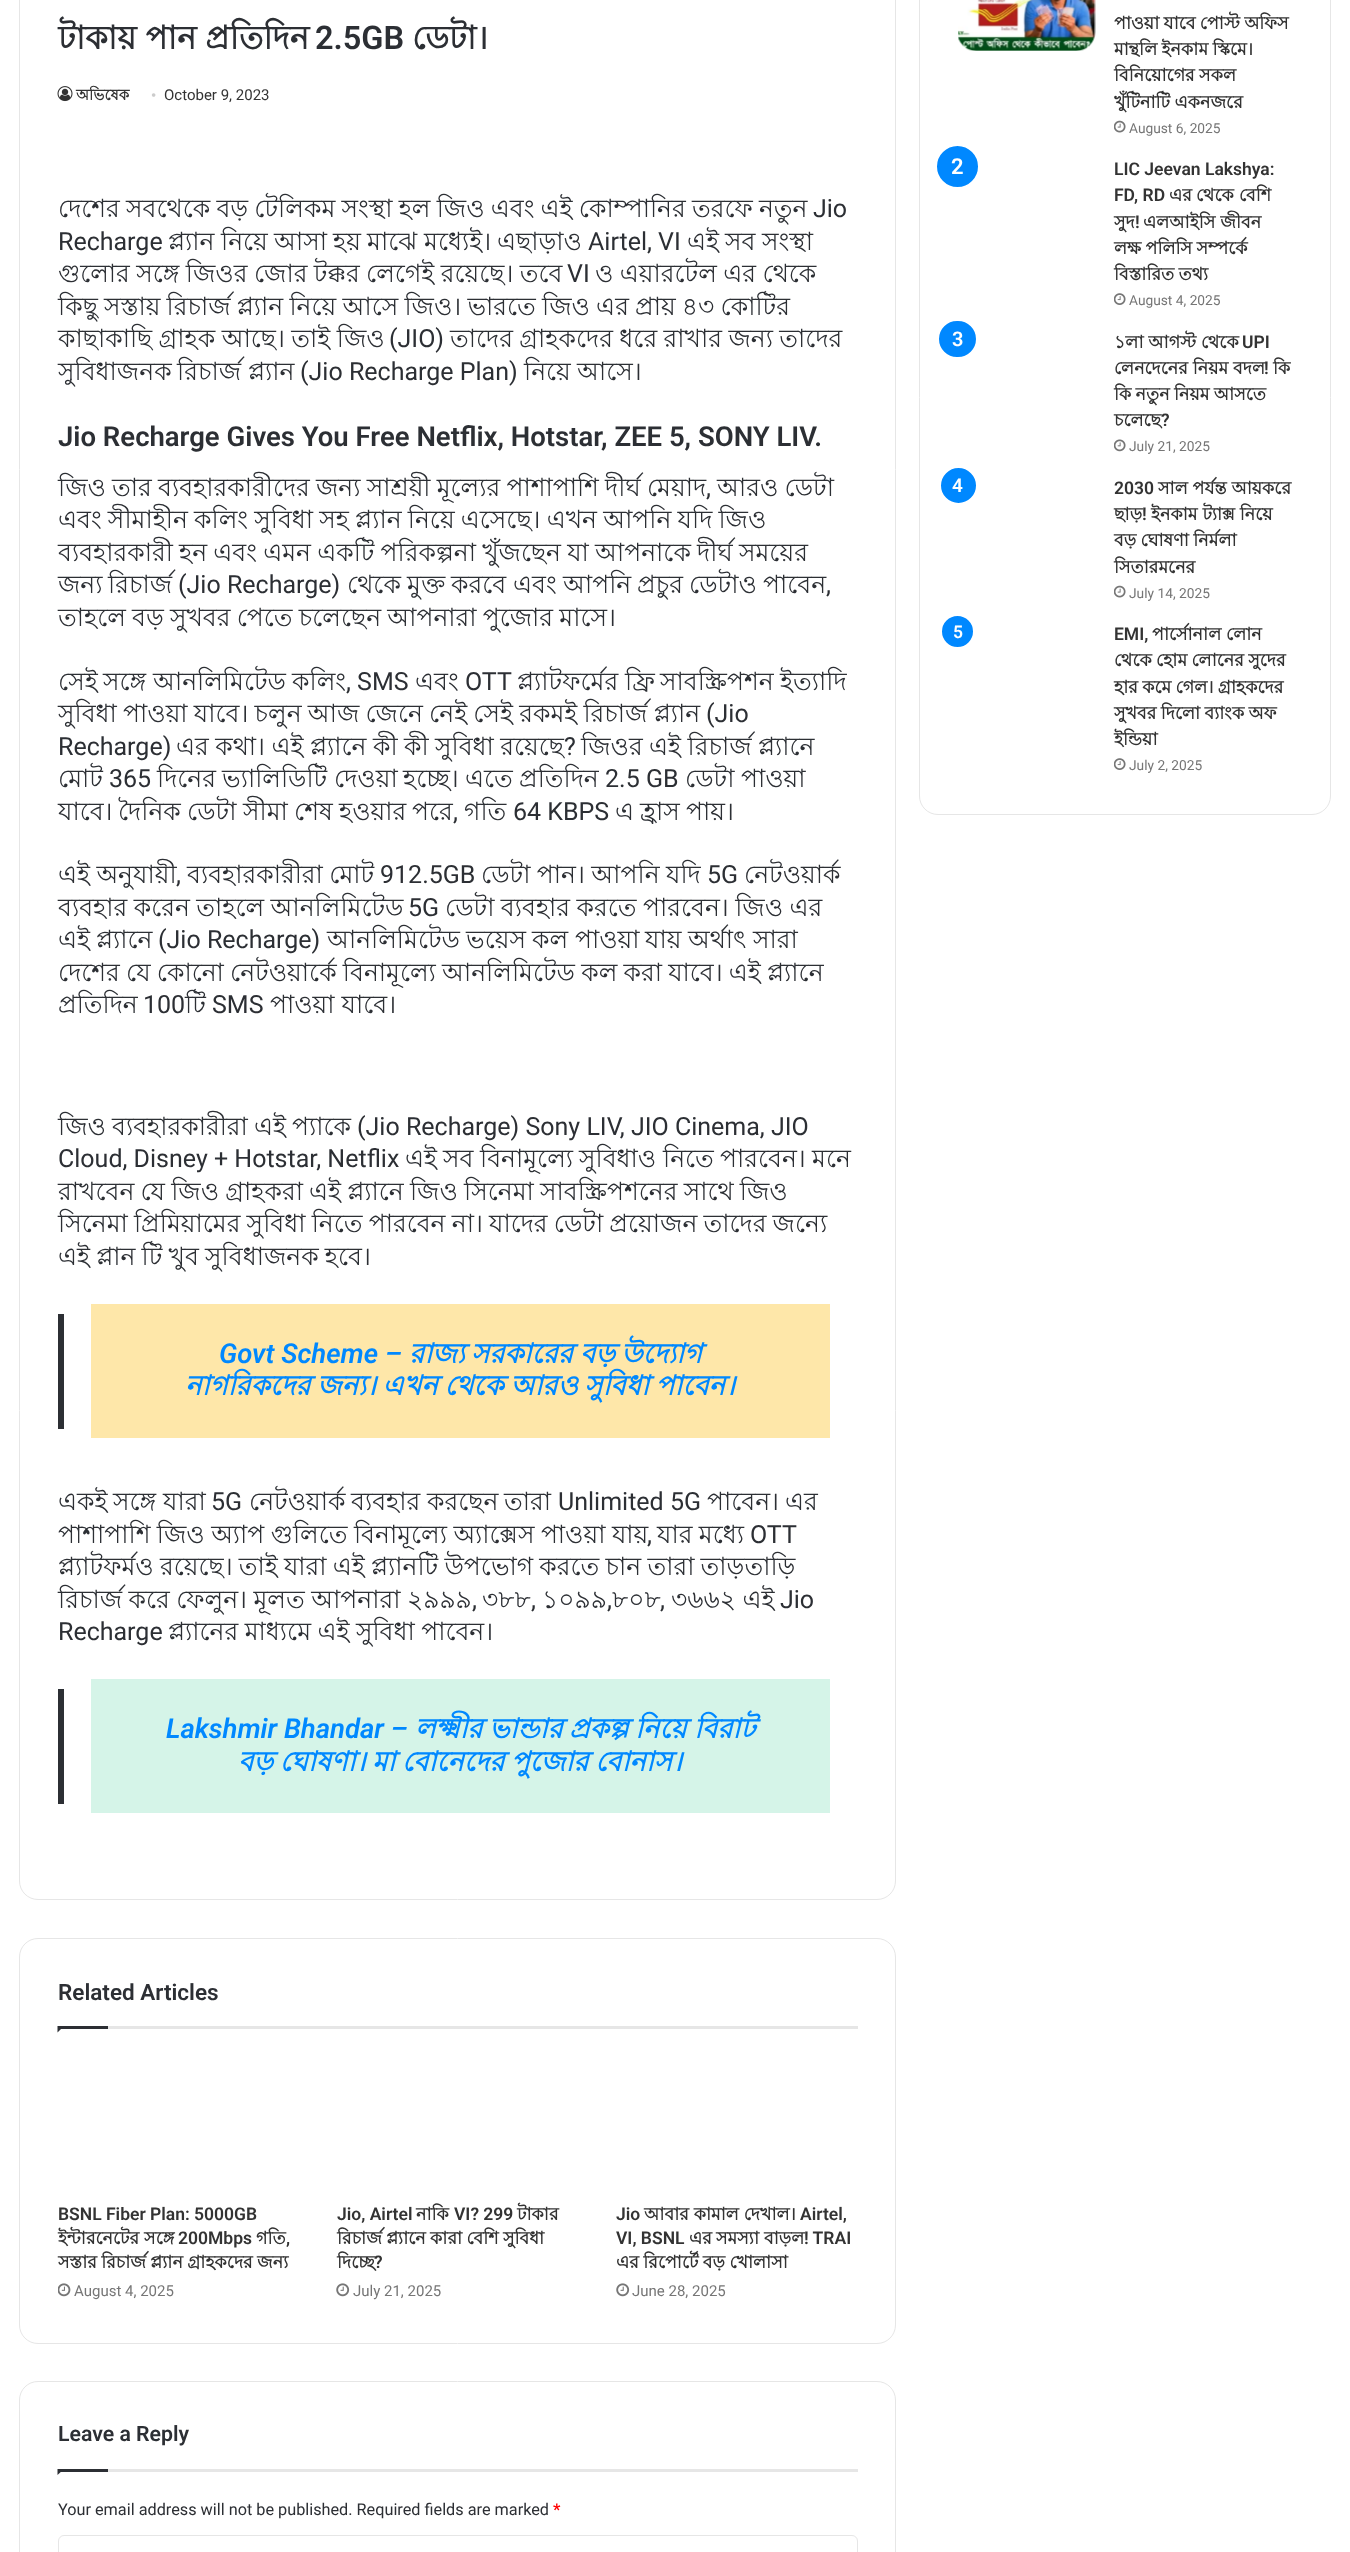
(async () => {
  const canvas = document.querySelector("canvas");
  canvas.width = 1350;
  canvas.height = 2552;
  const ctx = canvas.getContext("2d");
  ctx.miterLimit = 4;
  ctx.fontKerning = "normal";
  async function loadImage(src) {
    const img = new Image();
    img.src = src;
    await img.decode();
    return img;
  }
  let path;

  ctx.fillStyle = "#ffffff";
  ctx.fillRect(0, 0, 1350, 2552);
  ctx.beginPath();
  ctx.roundRect(19.5, -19.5, 876, 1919, 18.5);
  ctx.strokeStyle = "#e6e6e6";
  ctx.stroke();
  ctx.drawImage(await loadImage("img/1.png"), 57, 86, 16, 16);
  for (const [x, y, w, h, color] of [
    [58, 1314, 6, 115, "#2c2f34"],
    [91, 1304, 739, 134, "#fee7a9"],
    [58, 1689, 6, 115, "#2c2f34"],
    [91, 1679, 739, 134, "#d5f4e8"],
  ]) {
    ctx.fillStyle = color;
    ctx.fillRect(x, y, w, h);
  }
  ctx.beginPath();
  ctx.roundRect(19.5, 1938.5, 876, 405, 18.5);
  ctx.stroke();
  ctx.fillStyle = "#e6e6e6";
  ctx.fillRect(108, 2026, 750, 3);
  ctx.fillStyle = "#2c2f34";
  path = new Path2D("M57.5 2026H64L57.5 2032.5Z");
  ctx.fill(path);
  ctx.fillRect(58, 2026, 50, 3);
  ctx.drawImage(await loadImage("img/2.png"), 58, 2283, 13, 14);
  ctx.drawImage(await loadImage("img/3.png"), 336, 2283, 14, 14);
  ctx.drawImage(await loadImage("img/3.png"), 616, 2283, 14, 14);
  ctx.beginPath();
  ctx.roundRect(19.5, 2381.5, 876, 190, 18.5);
  ctx.stroke();
  ctx.fillStyle = "#e6e6e6";
  ctx.fillRect(108, 2469, 750, 3);
  ctx.fillStyle = "#2c2f34";
  path = new Path2D("M57.5 2469H64L57.5 2475Z");
  ctx.fill(path);
  ctx.fillRect(58, 2469, 50, 3);
  ctx.beginPath();
  ctx.roundRect(58.5, 2535.5, 799, 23, 5.5);
  ctx.stroke();
  ctx.beginPath();
  ctx.roundRect(919.5, -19.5, 411, 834, 18.5);
  ctx.stroke();
  ctx.drawImage(await loadImage("img/4.png"), 958, 0, 138, 51);
  ctx.drawImage(await loadImage("img/5.png"), 1114, 120, 12, 13);
  ctx.fillStyle = "#0088ff";
  ctx.beginPath();
  ctx.arc(957.5, 166.5, 22, 0, Math.PI * 2);
  ctx.fill();
  ctx.strokeStyle = "#ffffff";
  ctx.lineWidth = 3;
  ctx.stroke();
  ctx.drawImage(await loadImage("img/6.png"), 1114, 293, 12, 12);
  ctx.beginPath();
  ctx.roundRect(937.5, 319.5, 40, 39, 19.5);
  ctx.fill();
  ctx.stroke();
  ctx.drawImage(await loadImage("img/7.png"), 1114, 439, 12, 13);
  ctx.beginPath();
  ctx.arc(958.5, 485.5, 19, 0, Math.PI * 2);
  ctx.fill();
  ctx.stroke();
  ctx.drawImage(await loadImage("img/5.png"), 1114, 585, 12, 13);
  ctx.beginPath();
  ctx.arc(957.5, 631.5, 17, 0, Math.PI * 2);
  ctx.fill();
  ctx.stroke();
  ctx.drawImage(await loadImage("img/6.png"), 1114, 758, 12, 12);
  ctx.font = "bold 32.5px Lohit Bengali";
  ctx.fillStyle = "#2c2f34";
  ctx.fillText("টাকায় পান প্রতিদিন", 58, 49);
  ctx.font = "600 32.5px Roboto";
  ctx.fillText("2.5GB", 315, 49);
  ctx.font = "bold 32.5px Lohit Bengali";
  ctx.fillText("ডেটা।", 412, 49);
  ctx.font = "bold 15px Lohit Bengali";
  ctx.fillStyle = "#333333";
  ctx.fillText("অভিষেক", 76, 100);
  ctx.font = "15px Liberation Serif";
  ctx.fillStyle = "#cccccc";
  ctx.fillText("•", 151, 100);
  ctx.font = "15px Roboto";
  ctx.fillStyle = "#333333";
  ctx.fillText("October 9, 2023", 164, 100);
  ctx.wordSpacing = "-0.75px";
  ctx.font = "25px Lohit Bengali";
  ctx.fillStyle = "#2c2f34";
  ctx.fillText("দেশের সবথেকে বড় টেলিকম সংস্থা হল জিও এবং এই কোম্পানির তরফে নতুন", 58, 217);
  ctx.wordSpacing = "0px";
  ctx.font = "25px Roboto";
  ctx.fillText("Jio", 813, 217);
  ctx.fillText("Recharge", 58, 250);
  ctx.font = "25px Lohit Bengali";
  for (const [text, x, y] of [
    ["প্ল্যান", 168, 250],
    ["নিয়ে", 221, 250],
    ["আসা", 274, 250],
    ["হয়", 333, 250],
    ["মাঝে", 367, 250],
    ["মধ্যেই।", 424, 250],
    ["এছাড়াও", 497, 250],
  ]) {
    ctx.fillText(text, x, y);
  }
  ctx.font = "25px Roboto";
  ctx.fillText("Airtel, VI", 588, 250);
  ctx.font = "25px Lohit Bengali";
  for (const [text, x, y] of [
    ["এই", 687, 250],
    ["সব", 725, 250],
    ["সংস্থা", 762, 250],
  ]) {
    ctx.fillText(text, x, y);
  }
  ctx.wordSpacing = "-0.5px";
  ctx.fillText("গুলোর সঙ্গে জিওর জোর টক্কর লেগেই রয়েছে। তবে", 58, 282);
  ctx.wordSpacing = "0px";
  ctx.font = "25px Roboto";
  ctx.fillText("VI", 567, 282);
  ctx.wordSpacing = "-0.5px";
  ctx.font = "25px Lohit Bengali";
  ctx.fillText("ও এয়ারটেল এর থেকে", 595, 282);
  ctx.wordSpacing = "-0.75px";
  ctx.fillText("কিছু সস্তায় রিচার্জ প্ল্যান নিয়ে আসে জিও। ভারতে জিও এর প্রায় ৪৩ কোটির", 58, 315);
  ctx.wordSpacing = "-0.5px";
  ctx.fillText("কাছাকাছি গ্রাহক আছে। তাই জিও", 58, 347);
  ctx.wordSpacing = "0px";
  ctx.font = "25px Roboto";
  ctx.fillText("(JIO)", 389, 347);
  ctx.wordSpacing = "-0.5px";
  ctx.font = "25px Lohit Bengali";
  ctx.fillText("তাদের গ্রাহকদের ধরে রাখার জন্য তাদের", 450, 347);
  ctx.wordSpacing = "0px";
  for (const [text, x, y] of [
    ["সুবিধাজনক", 58, 380],
    ["রিচার্জ", 177, 380],
    ["প্ল্যান", 248, 380],
  ]) {
    ctx.fillText(text, x, y);
  }
  ctx.font = "25px Roboto";
  ctx.fillText("(Jio Recharge Plan)", 300, 380);
  ctx.font = "25px Lohit Bengali";
  ctx.fillText("নিয়ে", 524, 380);
  ctx.fillText("আসে।", 577, 380);
  ctx.font = "600 27.5px Roboto";
  ctx.fillText("Jio Recharge Gives You Free Netflix, Hotstar, ZEE 5, SONY LIV.", 58, 446);
  ctx.wordSpacing = "-0.75px";
  ctx.font = "25px Lohit Bengali";
  ctx.fillText("জিও তার ব্যবহারকারীদের জন্য সাশ্রয়ী মূল্যের পাশাপাশি দীর্ঘ মেয়াদ", 58, 496);
  ctx.wordSpacing = "0px";
  ctx.font = "25px Roboto";
  ctx.fillText(",", 706, 496);
  ctx.wordSpacing = "-0.75px";
  ctx.font = "25px Lohit Bengali";
  for (const [text, x, y] of [
    ["আরও ডেটা", 717, 496],
    ["এবং সীমাহীন কলিং সুবিধা সহ প্ল্যান নিয়ে এসেছে। এখন আপনি যদি জিও", 58, 528],
    ["ব্যবহারকারী হন এবং এমন একটি পরিকল্পনা খুঁজছেন যা আপনাকে দীর্ঘ সময়ের", 58, 561],
  ]) {
    ctx.fillText(text, x, y);
  }
  ctx.wordSpacing = "0px";
  ctx.fillText("জন্য", 58, 593);
  ctx.fillText("রিচার্জ", 108, 593);
  ctx.font = "25px Roboto";
  ctx.fillText("(Jio Recharge)", 178, 593);
  ctx.font = "25px Lohit Bengali";
  for (const [text, x, y] of [
    ["থেকে", 347, 593],
    ["মুক্ত", 407, 593],
    ["করবে", 451, 593],
    ["এবং", 513, 593],
    ["আপনি", 563, 593],
    ["প্রচুর", 637, 593],
    ["ডেটাও", 689, 593],
    ["পাবেন", 763, 593],
  ]) {
    ctx.fillText(text, x, y);
  }
  ctx.font = "25px Roboto";
  ctx.fillText(",", 826, 593);
  ctx.wordSpacing = "-0.75px";
  ctx.font = "25px Lohit Bengali";
  ctx.fillText("তাহলে বড় সুখবর পেতে চলেছেন আপনারা পুজোর মাসে।", 58, 626);
  ctx.wordSpacing = "0px";
  for (const [text, x, y] of [
    ["সেই", 58, 690],
    ["সঙ্গে", 103, 690],
    ["আনলিমিটেড", 153, 690],
    ["কলিং", 292, 690],
  ]) {
    ctx.fillText(text, x, y);
  }
  ctx.font = "25px Roboto";
  ctx.fillText(", SMS", 346, 690);
  ctx.font = "25px Lohit Bengali";
  ctx.fillText("এবং", 415, 690);
  ctx.font = "25px Roboto";
  ctx.fillText("OTT", 465, 690);
  ctx.font = "25px Lohit Bengali";
  for (const [text, x, y] of [
    ["প্ল্যাটফর্মের", 517, 690],
    ["ফ্রি", 625, 690],
    ["সাবস্ক্রিপশন", 660, 690],
    ["ইত্যাদি", 780, 690],
  ]) {
    ctx.fillText(text, x, y);
  }
  ctx.wordSpacing = "-0.75px";
  ctx.fillText("সুবিধা পাওয়া যাবে। চলুন আজ জেনে নেই সেই রকমই রিচার্জ প্ল্যান", 58, 722);
  ctx.wordSpacing = "0px";
  ctx.font = "25px Roboto";
  ctx.fillText("(Jio", 706, 722);
  ctx.fillText("Recharge)", 58, 755);
  ctx.wordSpacing = "-0.5px";
  ctx.font = "25px Lohit Bengali";
  ctx.fillText("এর কথা। এই প্ল্যানে কী কী সুবিধা রয়েছে", 176, 755);
  ctx.wordSpacing = "0px";
  ctx.font = "25px Roboto";
  ctx.fillText("?", 564, 755);
  ctx.wordSpacing = "-0.5px";
  ctx.font = "25px Lohit Bengali";
  ctx.fillText("জিওর এই রিচার্জ প্ল্যানে", 581, 755);
  ctx.wordSpacing = "0px";
  ctx.fillText("মোট", 58, 787);
  ctx.font = "25px Roboto";
  ctx.fillText("365", 109, 787);
  ctx.font = "25px Lohit Bengali";
  for (const [text, x, y] of [
    ["দিনের", 157, 787],
    ["ভ্যালিডিটি", 222, 787],
    ["দেওয়া", 334, 787],
    ["হচ্ছে।", 403, 787],
    ["এতে", 465, 787],
    ["প্রতিদিন", 519, 787],
  ]) {
    ctx.fillText(text, x, y);
  }
  ctx.font = "25px Roboto";
  ctx.fillText("2.5 GB", 605, 787);
  ctx.font = "25px Lohit Bengali";
  for (const [text, x, y] of [
    ["ডেটা", 685, 787],
    ["পাওয়া", 741, 787],
    ["যাবে।", 58, 820],
    ["দৈনিক", 118, 820],
    ["ডেটা", 187, 820],
    ["সীমা", 243, 820],
    ["শেষ", 294, 820],
    ["হওয়ার", 339, 820],
    ["পরে", 412, 820],
  ]) {
    ctx.fillText(text, x, y);
  }
  ctx.font = "25px Roboto";
  ctx.fillText(",", 453, 820);
  ctx.font = "25px Lohit Bengali";
  ctx.fillText("গতি", 464, 820);
  ctx.font = "25px Roboto";
  ctx.fillText("64 KBPS", 513, 820);
  ctx.font = "25px Lohit Bengali";
  for (const [text, x, y] of [
    ["এ", 615, 820],
    ["হ্রাস", 640, 820],
    ["পায়।", 686, 820],
  ]) {
    ctx.fillText(text, x, y);
  }
  ctx.wordSpacing = "-0.5px";
  ctx.fillText("এই অনুযায়ী", 58, 883);
  ctx.wordSpacing = "0px";
  ctx.font = "25px Roboto";
  ctx.fillText(",", 176, 883);
  ctx.wordSpacing = "-0.5px";
  ctx.font = "25px Lohit Bengali";
  ctx.fillText("ব্যবহারকারীরা মোট", 187, 883);
  ctx.wordSpacing = "0px";
  ctx.font = "25px Roboto";
  ctx.fillText("912.5GB", 380, 883);
  ctx.wordSpacing = "-0.5px";
  ctx.font = "25px Lohit Bengali";
  ctx.fillText("ডেটা পান। আপনি যদি", 481, 883);
  ctx.wordSpacing = "0px";
  ctx.font = "25px Roboto";
  ctx.fillText("5G", 707, 883);
  ctx.font = "25px Lohit Bengali";
  ctx.fillText("নেটওয়ার্ক", 744, 883);
  ctx.wordSpacing = "-0.5px";
  ctx.fillText("ব্যবহার করেন তাহলে আনলিমিটেড", 58, 916);
  ctx.wordSpacing = "0px";
  ctx.font = "25px Roboto";
  ctx.fillText("5G", 408, 916);
  ctx.wordSpacing = "-0.5px";
  ctx.font = "25px Lohit Bengali";
  ctx.fillText("ডেটা ব্যবহার করতে পারবেন। জিও এর", 445, 916);
  ctx.wordSpacing = "0px";
  ctx.fillText("এই", 58, 948);
  ctx.fillText("প্ল্যানে", 96, 948);
  ctx.font = "25px Roboto";
  ctx.fillText("(Jio Recharge)", 158, 948);
  ctx.font = "25px Lohit Bengali";
  for (const [text, x, y] of [
    ["আনলিমিটেড", 327, 948],
    ["ভয়েস", 466, 948],
    ["কল", 532, 948],
    ["পাওয়া", 575, 948],
    ["যায়", 645, 948],
    ["অর্থাৎ", 688, 948],
    ["সারা", 753, 948],
  ]) {
    ctx.fillText(text, x, y);
  }
  ctx.wordSpacing = "-0.75px";
  ctx.fillText("দেশের যে কোনো নেটওয়ার্কে বিনামূল্যে আনলিমিটেড কল করা যাবে। এই প্ল্যানে", 58, 981);
  ctx.wordSpacing = "0px";
  ctx.fillText("প্রতিদিন", 58, 1013);
  ctx.font = "25px Roboto";
  ctx.fillText("100", 143, 1013);
  ctx.font = "25px Lohit Bengali";
  ctx.fillText("টি", 185, 1013);
  ctx.font = "25px Roboto";
  ctx.fillText("SMS", 212, 1013);
  ctx.font = "25px Lohit Bengali";
  for (const [text, x, y] of [
    ["পাওয়া যাবে।", 270, 1013],
    ["জিও", 58, 1135],
    ["ব্যবহারকারীরা", 112, 1135],
    ["এই", 254, 1135],
    ["প্যাকে", 292, 1135],
  ]) {
    ctx.fillText(text, x, y);
  }
  ctx.font = "25px Roboto";
  ctx.fillText("(Jio Recharge) Sony LIV, JIO Cinema, JIO", 357, 1135);
  ctx.fillText("Cloud, Disney + Hotstar, Netflix", 58, 1167);
  ctx.font = "25px Lohit Bengali";
  for (const [text, x, y] of [
    ["এই", 405, 1167],
    ["সব", 443, 1167],
    ["বিনামূল্যে", 480, 1167],
    ["সুবিধাও", 579, 1167],
    ["নিতে", 663, 1167],
    ["পারবেন।", 720, 1167],
    ["মনে", 812, 1167],
  ]) {
    ctx.fillText(text, x, y);
  }
  ctx.wordSpacing = "-0.75px";
  for (const [text, x, y] of [
    ["রাখবেন যে জিও গ্রাহকরা এই প্ল্যানে জিও সিনেমা সাবস্ক্রিপশনের সাথে জিও", 58, 1200],
    ["সিনেমা প্রিমিয়ামের সুবিধা নিতে পারবেন না। যাদের ডেটা প্রয়োজন তাদের জন্যে", 58, 1232],
    ["এই প্লান টি খুব সুবিধাজনক হবে।", 58, 1265],
  ]) {
    ctx.fillText(text, x, y);
  }
  ctx.wordSpacing = "0px";
  ctx.font = "italic 600 27.5px Roboto";
  ctx.fillStyle = "#0088ff";
  ctx.fillText("Govt Scheme –", 219, 1363);
  ctx.font = "italic bold 27.5px Lohit Bengali";
  for (const [text, x, y] of [
    ["রাজ্য", 409, 1363],
    ["সরকারের", 471, 1363],
    ["বড়", 580, 1363],
    ["উদ্যোগ", 621, 1363],
  ]) {
    ctx.fillText(text, x, y);
  }
  ctx.wordSpacing = "-1px";
  ctx.fillText("নাগরিকদের জন্য। এখন থেকে আরও সুবিধা পাবেন।", 185, 1395);
  ctx.wordSpacing = "0px";
  ctx.font = "25px Lohit Bengali";
  ctx.fillStyle = "#2c2f34";
  for (const [text, x, y] of [
    ["একই", 58, 1510],
    ["সঙ্গে", 113, 1510],
    ["যারা", 163, 1510],
  ]) {
    ctx.fillText(text, x, y);
  }
  ctx.font = "25px Roboto";
  ctx.fillText("5G", 211, 1510);
  ctx.font = "25px Lohit Bengali";
  for (const [text, x, y] of [
    ["নেটওয়ার্ক", 249, 1510],
    ["ব্যবহার", 351, 1510],
    ["করছেন", 427, 1510],
    ["তারা", 504, 1510],
  ]) {
    ctx.fillText(text, x, y);
  }
  ctx.font = "25px Roboto";
  ctx.fillText("Unlimited 5G", 558, 1510);
  ctx.font = "25px Lohit Bengali";
  ctx.fillText("পাবেন।", 707, 1510);
  ctx.fillText("এর", 785, 1510);
  ctx.wordSpacing = "-0.5px";
  ctx.fillText("পাশাপাশি জিও অ্যাপ গুলিতে বিনামূল্যে অ্যাক্সেস পাওয়া যায়", 58, 1543);
  ctx.wordSpacing = "0px";
  ctx.font = "25px Roboto";
  ctx.fillText(",", 647, 1543);
  ctx.wordSpacing = "-0.5px";
  ctx.font = "25px Lohit Bengali";
  ctx.fillText("যার মধ্যে", 657, 1543);
  ctx.wordSpacing = "0px";
  ctx.font = "25px Roboto";
  ctx.fillText("OTT", 750, 1543);
  ctx.wordSpacing = "-0.75px";
  ctx.font = "25px Lohit Bengali";
  ctx.fillText("প্ল্যাটফর্মও রয়েছে। তাই যারা এই প্ল্যানটি উপভোগ করতে চান তারা তাড়তাড়ি", 58, 1575);
  ctx.wordSpacing = "-0.5px";
  ctx.fillText("রিচার্জ করে ফেলুন। মূলত আপনারা ২৯৯৯", 58, 1608);
  ctx.wordSpacing = "0px";
  ctx.font = "25px Roboto";
  ctx.fillText(",", 472, 1608);
  ctx.font = "25px Lohit Bengali";
  ctx.fillText("৩৮৮", 482, 1608);
  ctx.font = "25px Roboto";
  ctx.fillText(",", 531, 1608);
  ctx.font = "25px Lohit Bengali";
  ctx.fillText("১০৯৯", 542, 1608);
  ctx.font = "25px Roboto";
  ctx.fillText(",", 607, 1608);
  ctx.font = "25px Lohit Bengali";
  ctx.fillText("৮০৮", 612, 1608);
  ctx.font = "25px Roboto";
  ctx.fillText(",", 660, 1608);
  ctx.wordSpacing = "-0.5px";
  ctx.font = "25px Lohit Bengali";
  ctx.fillText("৩৬৬২ এই", 671, 1608);
  ctx.wordSpacing = "0px";
  ctx.font = "25px Roboto";
  ctx.fillText("Jio", 780, 1608);
  ctx.fillText("Recharge", 58, 1640);
  ctx.wordSpacing = "-0.5px";
  ctx.font = "25px Lohit Bengali";
  ctx.fillText("প্ল্যানের মাধ্যমে এই সুবিধা পাবেন।", 168, 1640);
  ctx.wordSpacing = "0px";
  ctx.font = "italic 600 27.5px Roboto";
  ctx.fillStyle = "#0088ff";
  ctx.fillText("Lakshmir Bhandar –", 166, 1738);
  ctx.font = "italic bold 27.5px Lohit Bengali";
  for (const [text, x, y] of [
    ["লক্ষ্মীর", 415, 1738],
    ["ভান্ডার", 489, 1738],
    ["প্রকল্প", 569, 1738],
    ["নিয়ে", 635, 1738],
    ["বিরাট", 694, 1738],
  ]) {
    ctx.fillText(text, x, y);
  }
  ctx.wordSpacing = "-1px";
  ctx.fillText("বড় ঘোষণা। মা বোনেদের পুজোর বোনাস।", 238, 1771);
  ctx.wordSpacing = "0px";
  ctx.font = "600 22.5px Roboto";
  ctx.fillStyle = "#2c2f34";
  ctx.fillText("Related Articles", 58, 2000);
  ctx.font = "600 17.5px Roboto";
  ctx.fillStyle = "#333333";
  ctx.fillText("BSNL Fiber Plan: 5000GB", 58, 2220);
  ctx.font = "bold 17.5px Lohit Bengali";
  ctx.fillText("ইন্টারনেটের সঙ্গে", 58, 2244);
  ctx.font = "600 17.5px Roboto";
  ctx.fillText("200Mbps", 178, 2244);
  ctx.font = "bold 17.5px Lohit Bengali";
  ctx.fillText("গতি", 256, 2244);
  ctx.font = "600 17.5px Roboto";
  ctx.fillText(",", 286, 2244);
  ctx.wordSpacing = "-0.5px";
  ctx.font = "bold 17.5px Lohit Bengali";
  ctx.fillText("সস্তার রিচার্জ প্ল্যান গ্রাহকদের জন্য", 58, 2268);
  ctx.wordSpacing = "0px";
  ctx.font = "15px Roboto";
  ctx.fillStyle = "#767676";
  ctx.fillText("August 4, 2025", 74, 2296);
  ctx.font = "600 17.5px Roboto";
  ctx.fillStyle = "#333333";
  ctx.fillText("Jio, Airtel", 337, 2220);
  ctx.font = "bold 17.5px Lohit Bengali";
  ctx.fillText("নাকি", 416, 2220);
  ctx.font = "600 17.5px Roboto";
  ctx.fillText("VI? 299", 454, 2220);
  ctx.font = "bold 17.5px Lohit Bengali";
  ctx.fillText("টাকার", 517, 2220);
  ctx.wordSpacing = "-0.5px";
  ctx.fillText("রিচার্জ প্ল্যানে কারা বেশি সুবিধা", 337, 2244);
  ctx.wordSpacing = "0px";
  ctx.fillText("দিচ্ছে", 337, 2268);
  ctx.font = "600 17.5px Roboto";
  ctx.fillText("?", 374, 2268);
  ctx.font = "15px Roboto";
  ctx.fillStyle = "#767676";
  ctx.fillText("July 21, 2025", 353, 2296);
  ctx.font = "600 17.5px Roboto";
  ctx.fillStyle = "#333333";
  ctx.fillText("Jio", 616, 2220);
  ctx.font = "bold 17.5px Lohit Bengali";
  ctx.fillText("আবার কামাল দেখাল।", 644, 2220);
  ctx.font = "600 17.5px Roboto";
  ctx.fillText("Airtel,", 800, 2220);
  ctx.fillText("VI, BSNL", 616, 2244);
  ctx.font = "bold 17.5px Lohit Bengali";
  for (const [text, x, y] of [
    ["এর", 689, 2244],
    ["সমস্যা", 716, 2244],
    ["বাড়ল", 764, 2244],
  ]) {
    ctx.fillText(text, x, y);
  }
  ctx.font = "600 17.5px Roboto";
  ctx.fillText("! TRAI", 804, 2244);
  ctx.wordSpacing = "-0.5px";
  ctx.font = "bold 17.5px Lohit Bengali";
  ctx.fillText("এর রিপোর্টে বড় খোলাসা", 616, 2268);
  ctx.wordSpacing = "0px";
  ctx.font = "15px Roboto";
  ctx.fillStyle = "#767676";
  ctx.fillText("June 28, 2025", 632, 2296);
  ctx.font = "600 21.25px Roboto";
  ctx.fillStyle = "#2c2f34";
  ctx.fillText("Leave a Reply", 58, 2441);
  ctx.font = "16.25px Roboto";
  ctx.fillText("Your email address will not be published. Required fields are marked", 58, 2515);
  ctx.font = "bold 16.25px Roboto";
  ctx.fillStyle = "#ff0000";
  ctx.fillText("*", 553, 2515);
  ctx.wordSpacing = "-0.5px";
  ctx.font = "bold 17.5px Lohit Bengali";
  ctx.fillStyle = "#333333";
  for (const [text, x, y] of [
    ["পাওয়া যাবে পোস্ট অফিস", 1114, 29],
    ["মান্থলি ইনকাম স্কিমে।", 1114, 55],
    ["বিনিয়োগের সকল", 1114, 81],
    ["খুঁটিনাটি একনজরে", 1114, 108],
  ]) {
    ctx.fillText(text, x, y);
  }
  ctx.wordSpacing = "0px";
  ctx.font = "13.75px Roboto";
  ctx.fillStyle = "#767676";
  ctx.fillText("August 6, 2025", 1129, 133);
  ctx.font = "600 22px Roboto";
  ctx.fillStyle = "#ffffff";
  ctx.fillText("2", 951, 174);
  ctx.font = "600 17.5px Roboto";
  ctx.fillStyle = "#333333";
  ctx.fillText("LIC Jeevan Lakshya:", 1114, 175);
  ctx.fillText("FD, RD", 1114, 201);
  ctx.font = "bold 17.5px Lohit Bengali";
  for (const [text, x, y] of [
    ["এর", 1169, 201],
    ["থেকে", 1196, 201],
    ["বেশি", 1239, 201],
    ["সুদ", 1114, 228],
  ]) {
    ctx.fillText(text, x, y);
  }
  ctx.font = "600 17.5px Roboto";
  ctx.fillText("!", 1135, 228);
  ctx.font = "bold 17.5px Lohit Bengali";
  ctx.fillText("এলআইসি জীবন", 1143, 228);
  ctx.wordSpacing = "-0.5px";
  ctx.fillText("লক্ষ পলিসি সম্পর্কে", 1114, 254);
  ctx.fillText("বিস্তারিত তথ্য", 1114, 280);
  ctx.wordSpacing = "0px";
  ctx.font = "13.75px Roboto";
  ctx.fillStyle = "#767676";
  ctx.fillText("August 4, 2025", 1129, 305);
  ctx.font = "600 20px Roboto";
  ctx.fillStyle = "#ffffff";
  ctx.fillText("3", 952, 346);
  ctx.font = "bold 17.5px Lohit Bengali";
  ctx.fillStyle = "#333333";
  ctx.fillText("১লা আগস্ট থেকে", 1114, 348);
  ctx.font = "600 17.5px Roboto";
  ctx.fillText("UPI", 1242, 348);
  ctx.font = "bold 17.5px Lohit Bengali";
  ctx.fillText("লেনদেনের নিয়ম বদল", 1114, 374);
  ctx.font = "600 17.5px Roboto";
  ctx.fillText("!", 1264, 374);
  ctx.font = "bold 17.5px Lohit Bengali";
  ctx.fillText("কি", 1273, 374);
  ctx.wordSpacing = "-0.5px";
  ctx.fillText("কি নতুন নিয়ম আসতে", 1114, 400);
  ctx.wordSpacing = "0px";
  ctx.fillText("চলেছে", 1114, 426);
  ctx.font = "600 17.5px Roboto";
  ctx.fillText("?", 1161, 426);
  ctx.font = "13.75px Roboto";
  ctx.fillStyle = "#767676";
  ctx.fillText("July 21, 2025", 1129, 451);
  ctx.font = "600 19px Roboto";
  ctx.fillStyle = "#ffffff";
  ctx.fillText("4", 952, 492);
  ctx.font = "600 17.5px Roboto";
  ctx.fillStyle = "#333333";
  ctx.fillText("2030", 1114, 494);
  ctx.font = "bold 17.5px Lohit Bengali";
  ctx.fillText("সাল পর্যন্ত আয়করে", 1158, 494);
  ctx.fillText("ছাড়", 1114, 520);
  ctx.font = "600 17.5px Roboto";
  ctx.fillText("!", 1142, 520);
  ctx.font = "bold 17.5px Lohit Bengali";
  ctx.fillText("ইনকাম ট্যাক্স নিয়ে", 1151, 520);
  ctx.wordSpacing = "-0.5px";
  ctx.fillText("বড় ঘোষণা নির্মলা", 1114, 546);
  ctx.wordSpacing = "0px";
  ctx.fillText("সিতারমনের", 1114, 573);
  ctx.font = "13.75px Roboto";
  ctx.fillStyle = "#767676";
  ctx.fillText("July 14, 2025", 1129, 598);
  ctx.font = "600 17.5px Roboto";
  ctx.fillStyle = "#ffffff";
  ctx.fillText("5", 953, 638);
  ctx.fillStyle = "#333333";
  ctx.fillText("EMI,", 1114, 640);
  ctx.font = "bold 17.5px Lohit Bengali";
  ctx.fillText("পার্সোনাল লোন", 1152, 640);
  ctx.wordSpacing = "-0.5px";
  for (const [text, x, y] of [
    ["থেকে হোম লোনের সুদের", 1114, 666],
    ["হার কমে গেল। গ্রাহকদের", 1114, 693],
    ["সুখবর দিলো ব্যাংক অফ", 1114, 719],
  ]) {
    ctx.fillText(text, x, y);
  }
  ctx.wordSpacing = "0px";
  ctx.fillText("ইন্ডিয়া", 1114, 745);
  ctx.font = "13.75px Roboto";
  ctx.fillStyle = "#767676";
  ctx.fillText("July 2, 2025", 1129, 770);
})();
